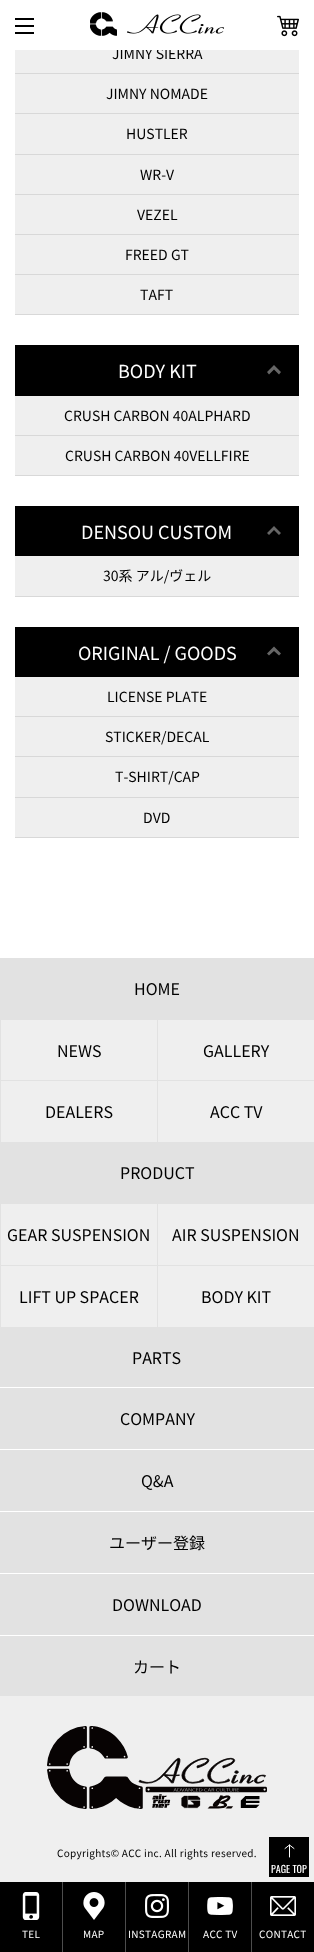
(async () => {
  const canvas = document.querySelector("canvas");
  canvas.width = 314;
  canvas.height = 1952;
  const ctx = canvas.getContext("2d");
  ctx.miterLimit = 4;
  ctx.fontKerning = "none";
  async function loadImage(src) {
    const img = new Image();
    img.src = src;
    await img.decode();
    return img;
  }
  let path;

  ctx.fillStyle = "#ffffff";
  ctx.fillRect(0, 0, 314, 1952);
  for (const [x, y, w, h, color] of [
    [15, 25, 19, 2, "#000000"],
    [15, 18, 19, 2, "#000000"],
    [15, 32, 19, 2, "#000000"],
  ]) {
    ctx.fillStyle = color;
    ctx.fillRect(x, y, w, h);
  }
  ctx.drawImage(await loadImage("img/1.png"), 90, 12, 134, 24);
  ctx.drawImage(await loadImage("img/2.png"), 277, 15, 22, 22);
  for (const [x, y, w, h, color] of [
    [15, 50, 284, 264, "#efefef"],
    [15, 73, 284, 1, "#d8d8d8"],
    [15, 113, 284, 1, "#d8d8d8"],
    [15, 154, 284, 1, "#d8d8d8"],
    [15, 194, 284, 1, "#d8d8d8"],
    [15, 234, 284, 1, "#d8d8d8"],
    [15, 274, 284, 1, "#d8d8d8"],
    [15, 314, 284, 1, "#d8d8d8"],
    [15, 345, 284, 51, "#000000"],
  ]) {
    ctx.fillStyle = color;
    ctx.fillRect(x, y, w, h);
  }
  ctx.fillStyle = "#666666";
  path = new Path2D("M274 365L281 372L279 374.5L274 369.5ZM267 372L274 365V369.5L269 374.5Z");
  ctx.fill(path);
  for (const [x, y, w, h, color] of [
    [15, 396, 284, 79, "#efefef"],
    [15, 435, 284, 1, "#d8d8d8"],
    [15, 475, 284, 1, "#d8d8d8"],
    [15, 506, 284, 50, "#000000"],
  ]) {
    ctx.fillStyle = color;
    ctx.fillRect(x, y, w, h);
  }
  ctx.fillStyle = "#666666";
  path = new Path2D("M274 526L281 533L279 535L274 530ZM267 533L274 526V530L269 535Z");
  ctx.fill(path);
  for (const [x, y, w, h, color] of [
    [15, 556, 284, 40, "#efefef"],
    [15, 596, 284, 1, "#d8d8d8"],
    [15, 627, 284, 50, "#000000"],
  ]) {
    ctx.fillStyle = color;
    ctx.fillRect(x, y, w, h);
  }
  ctx.fillStyle = "#666666";
  path = new Path2D("M274 646.5L281 653.5L279 655.5L274 651ZM267 653.5L274 646.5V651L269 655.5Z");
  ctx.fill(path);
  for (const [x, y, w, h, color] of [
    [15, 677, 284, 160, "#efefef"],
    [15, 716, 284, 1, "#d8d8d8"],
    [15, 756, 284, 1, "#d8d8d8"],
    [15, 797, 284, 1, "#d8d8d8"],
    [15, 837, 284, 1, "#d8d8d8"],
    [0, 1020, 314, 862, "#efefef"],
    [0, 958, 314, 61, "#e2e2e2"],
    [0, 1019, 314, 1, "#e2e2e2"],
    [0, 1019, 1, 61, "#e2e2e2"],
    [157, 1019, 1, 61, "#e2e2e2"],
    [0, 1080, 314, 1, "#e2e2e2"],
    [0, 1080, 1, 62, "#e2e2e2"],
    [157, 1080, 1, 62, "#e2e2e2"],
    [0, 1142, 314, 61, "#e2e2e2"],
    [0, 1203, 314, 1, "#e2e2e2"],
    [0, 1203, 1, 62, "#e2e2e2"],
    [157, 1203, 1, 62, "#e2e2e2"],
    [0, 1265, 314, 1, "#e2e2e2"],
    [0, 1265, 1, 62, "#e2e2e2"],
    [157, 1265, 1, 62, "#e2e2e2"],
    [0, 1327, 314, 60, "#e2e2e2"],
    [0, 1388, 314, 61, "#e2e2e2"],
    [0, 1387, 314, 1, "#ffffff"],
    [0, 1450, 314, 61, "#e2e2e2"],
    [0, 1449, 314, 1, "#ffffff"],
    [0, 1512, 314, 61, "#e2e2e2"],
    [0, 1511, 314, 1, "#ffffff"],
    [0, 1574, 314, 61, "#e2e2e2"],
    [0, 1573, 314, 1, "#ffffff"],
    [0, 1636, 314, 60, "#e2e2e2"],
    [0, 1635, 314, 1, "#ffffff"],
  ]) {
    ctx.fillStyle = color;
    ctx.fillRect(x, y, w, h);
  }
  ctx.drawImage(await loadImage("img/3.png"), 47, 1726, 220, 83);
  ctx.fillStyle = "#000000";
  ctx.fillRect(0, 1882, 314, 70);
  ctx.drawImage(await loadImage("img/4.png"), 22, 1892, 18, 28);
  ctx.fillStyle = "#4d4d4d";
  ctx.fillRect(62, 1882, 1, 70);
  ctx.drawImage(await loadImage("img/5.png"), 83, 1892, 22, 28);
  ctx.fillRect(125, 1882, 1, 70);
  ctx.drawImage(await loadImage("img/6.png"), 145, 1894, 24, 24);
  ctx.fillRect(188, 1882, 1, 70);
  ctx.drawImage(await loadImage("img/7.png"), 207, 1897, 26, 18);
  ctx.fillRect(251, 1882, 1, 70);
  ctx.drawImage(await loadImage("img/8.png"), 270, 1896, 26, 20);
  ctx.fillStyle = "#000000";
  ctx.fillRect(269, 1837, 40, 40);
  path = new Path2D("M285 1848.5L289.5 1845L294 1848.5M289.5 1845V1857");
  ctx.strokeStyle = "#ffffff";
  ctx.lineCap = "round";
  ctx.lineJoin = "round";
  ctx.stroke(path);
  ctx.font = "14px Noto Sans JP";
  ctx.fillText("JIMNY SIERRA", 112, 59);
  ctx.fillStyle = "#ffffff";
  ctx.fillRect(116, 48, 84, 2);
  ctx.fillStyle = "#000000";
  for (const [text, x, y] of [
    ["JIMNY NOMADE", 106, 99],
    ["HUSTLER", 126, 139],
    ["WR-V", 140, 180],
    ["VEZEL", 137, 220],
    ["FREED GT", 125, 260],
    ["TAFT", 140, 300],
  ]) {
    ctx.fillText(text, x, y);
  }
  ctx.font = "18px Noto Sans JP";
  ctx.fillStyle = "#ffffff";
  ctx.fillText("BODY KIT", 118, 378);
  ctx.font = "14px Noto Sans JP";
  ctx.fillStyle = "#000000";
  ctx.fillText("CRUSH CARBON 40ALPHARD", 64, 421);
  ctx.fillText("CRUSH CARBON 40VELLFIRE", 65, 461);
  ctx.font = "18px Noto Sans JP";
  ctx.fillStyle = "#ffffff";
  ctx.fillText("DENSOU CUSTOM", 81, 539);
  ctx.font = "14px Noto Sans JP";
  ctx.fillStyle = "#000000";
  ctx.fillText("30系 アル/ヴェル", 103, 581);
  ctx.font = "18px Noto Sans JP";
  ctx.fillStyle = "#ffffff";
  ctx.fillText("ORIGINAL / GOODS", 78, 660);
  ctx.font = "14px Noto Sans JP";
  ctx.fillStyle = "#000000";
  for (const [text, x, y] of [
    ["LICENSE PLATE", 107, 702],
    ["STICKER/DECAL", 105, 742],
    ["T-SHIRT/CAP", 115, 782],
    ["DVD", 143, 823],
  ]) {
    ctx.fillText(text, x, y);
  }
  ctx.font = "16px Noto Sans JP";
  for (const [text, x, y] of [
    ["HOME", 134, 995],
    ["NEWS", 57, 1057],
    ["GALLERY", 203, 1057],
    ["DEALERS", 45, 1118],
    ["ACC TV", 210, 1118],
    ["PRODUCT", 120, 1179],
    ["GEAR SUSPENSION", 7, 1241],
    ["AIR SUSPENSION", 172, 1241],
    ["LIFT UP SPACER", 19, 1303],
    ["BODY KIT", 201, 1303],
    ["PARTS", 132, 1364],
    ["COMPANY", 120, 1425],
    ["Q&A", 141, 1487],
    ["ユーザー登録", 109, 1549],
    ["DOWNLOAD", 112, 1611],
    ["カート", 133, 1673],
  ]) {
    ctx.fillText(text, x, y);
  }
  ctx.letterSpacing = "0.3px";
  ctx.font = "10px Noto Sans JP";
  ctx.fillText("Copyrights© ACC inc. All rights reserved.", 57, 1857);
  ctx.fillStyle = "#ffffff";
  for (const [text, x, y] of [
    ["TEL", 22, 1938],
    ["MAP", 83, 1938],
    ["INSTAGRAM", 128, 1938],
    ["ACC TV", 203, 1938],
    ["CONTACT", 259, 1938],
  ]) {
    ctx.fillText(text, x, y);
  }
  ctx.letterSpacing = "0px";
  ctx.font = "10px Oswald";
  ctx.fillText("PAGE TOP", 271, 1873);
})();
